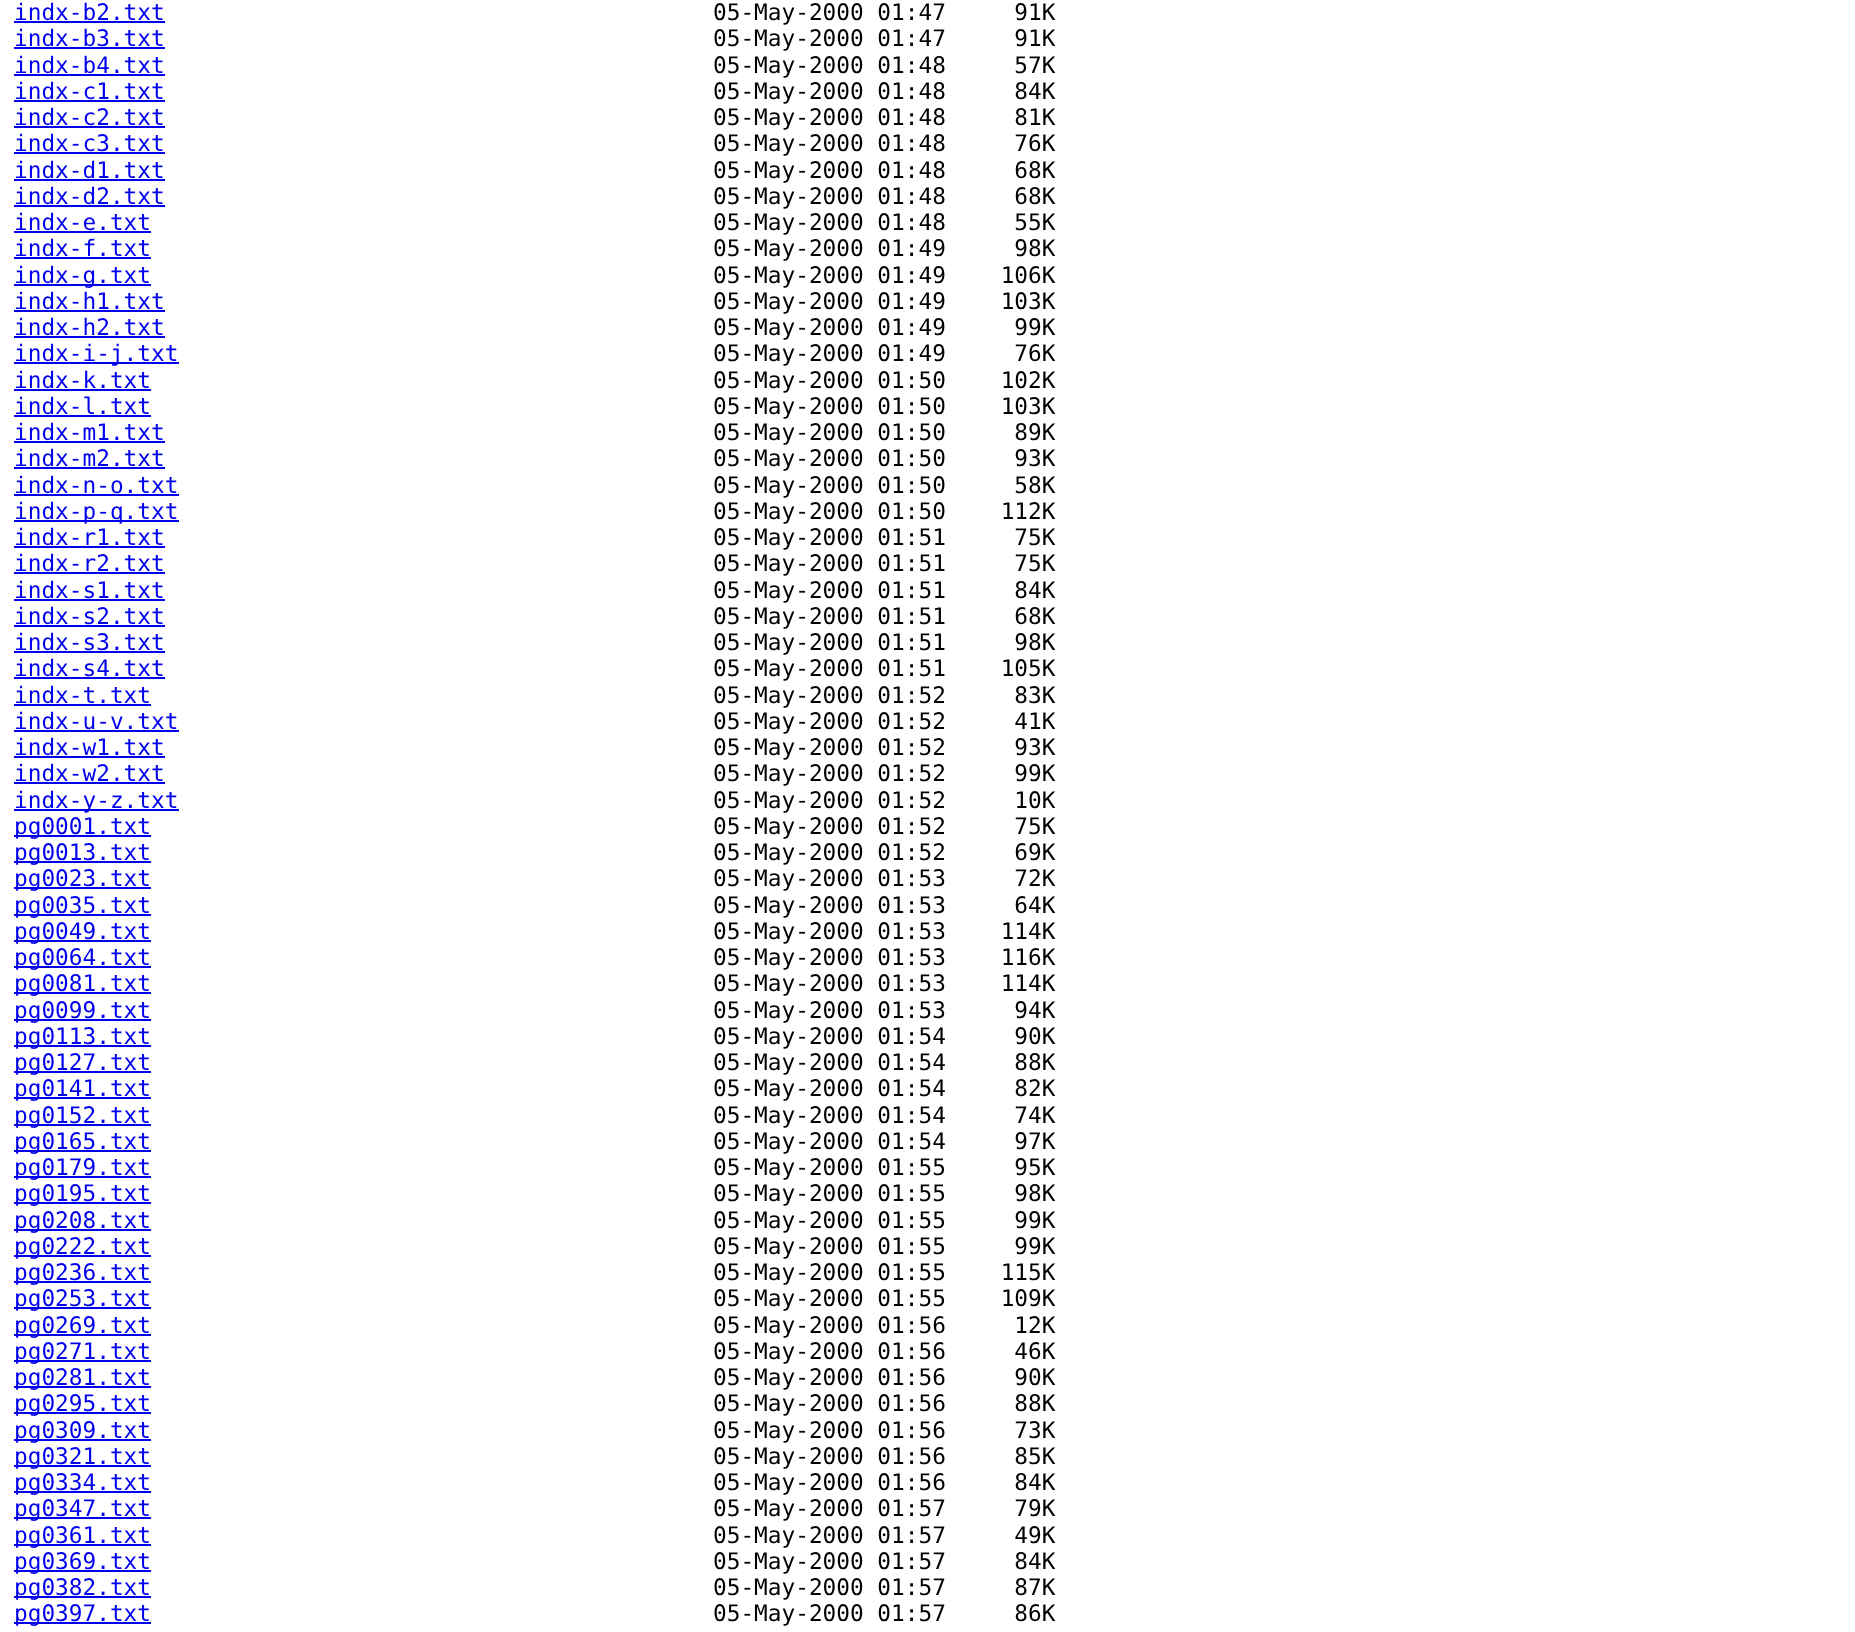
(async () => {
  const canvas = document.querySelector("canvas");
  canvas.width = 1855;
  canvas.height = 1632;
  const ctx = canvas.getContext("2d");
  ctx.miterLimit = 4;
  ctx.fontKerning = "normal";

  ctx.fillStyle = "#ffffff";
  ctx.fillRect(0, 0, 1855, 1632);
  for (const [x, y, w, h, color] of [
    [14, 21, 151, 2, "#0000ee"],
    [14, 47, 151, 2, "#0000ee"],
    [14, 74, 151, 2, "#0000ee"],
    [14, 100, 151, 2, "#0000ee"],
    [14, 126, 151, 2, "#0000ee"],
    [14, 152, 151, 2, "#0000ee"],
    [14, 179, 151, 2, "#0000ee"],
    [14, 205, 151, 2, "#0000ee"],
    [14, 231, 137, 2, "#0000ee"],
    [14, 257, 137, 2, "#0000ee"],
    [14, 284, 137, 2, "#0000ee"],
    [14, 310, 151, 2, "#0000ee"],
    [14, 336, 151, 2, "#0000ee"],
    [14, 362, 165, 2, "#0000ee"],
    [14, 389, 137, 2, "#0000ee"],
    [14, 415, 137, 2, "#0000ee"],
    [14, 441, 151, 2, "#0000ee"],
    [14, 467, 151, 2, "#0000ee"],
    [14, 494, 165, 2, "#0000ee"],
    [14, 520, 165, 2, "#0000ee"],
    [14, 546, 151, 2, "#0000ee"],
    [14, 572, 151, 2, "#0000ee"],
    [14, 599, 151, 2, "#0000ee"],
    [14, 625, 151, 2, "#0000ee"],
    [14, 651, 151, 2, "#0000ee"],
    [14, 677, 151, 2, "#0000ee"],
    [14, 704, 137, 2, "#0000ee"],
    [14, 730, 165, 2, "#0000ee"],
    [14, 756, 151, 2, "#0000ee"],
    [14, 782, 151, 2, "#0000ee"],
    [14, 809, 165, 2, "#0000ee"],
    [14, 835, 137, 2, "#0000ee"],
    [14, 861, 137, 2, "#0000ee"],
    [14, 887, 137, 2, "#0000ee"],
    [14, 914, 137, 2, "#0000ee"],
    [14, 940, 137, 2, "#0000ee"],
    [14, 966, 137, 2, "#0000ee"],
    [14, 992, 137, 2, "#0000ee"],
    [14, 1019, 137, 2, "#0000ee"],
    [14, 1045, 137, 2, "#0000ee"],
    [14, 1071, 137, 2, "#0000ee"],
    [14, 1097, 137, 2, "#0000ee"],
    [14, 1124, 137, 2, "#0000ee"],
    [14, 1150, 137, 2, "#0000ee"],
    [14, 1176, 137, 2, "#0000ee"],
    [14, 1202, 137, 2, "#0000ee"],
    [14, 1229, 137, 2, "#0000ee"],
    [14, 1255, 137, 2, "#0000ee"],
    [14, 1281, 137, 2, "#0000ee"],
    [14, 1307, 137, 2, "#0000ee"],
    [14, 1334, 137, 2, "#0000ee"],
    [14, 1360, 137, 2, "#0000ee"],
    [14, 1386, 137, 2, "#0000ee"],
    [14, 1412, 137, 2, "#0000ee"],
    [14, 1439, 137, 2, "#0000ee"],
    [14, 1465, 137, 2, "#0000ee"],
    [14, 1491, 137, 2, "#0000ee"],
    [14, 1517, 137, 2, "#0000ee"],
    [14, 1544, 137, 2, "#0000ee"],
    [14, 1570, 137, 2, "#0000ee"],
    [14, 1596, 137, 2, "#0000ee"],
    [14, 1622, 137, 2, "#0000ee"],
  ]) {
    ctx.fillStyle = color;
    ctx.fillRect(x, y, w, h);
  }
  ctx.font = "22.75px DejaVu Sans Mono";
  ctx.fillText("indx-b2.txt", 14, 20);
  ctx.fillStyle = "#000000";
  ctx.fillText("05-May-2000 01:47     91K", 713, 20);
  ctx.fillStyle = "#0000ee";
  ctx.fillText("indx-b3.txt", 14, 46);
  ctx.fillStyle = "#000000";
  ctx.fillText("05-May-2000 01:47     91K", 713, 46);
  ctx.fillStyle = "#0000ee";
  ctx.fillText("indx-b4.txt", 14, 73);
  ctx.fillStyle = "#000000";
  ctx.fillText("05-May-2000 01:48     57K", 713, 73);
  ctx.fillStyle = "#0000ee";
  ctx.fillText("indx-c1.txt", 14, 99);
  ctx.fillStyle = "#000000";
  ctx.fillText("05-May-2000 01:48     84K", 713, 99);
  ctx.fillStyle = "#0000ee";
  ctx.fillText("indx-c2.txt", 14, 125);
  ctx.fillStyle = "#000000";
  ctx.fillText("05-May-2000 01:48     81K", 713, 125);
  ctx.fillStyle = "#0000ee";
  ctx.fillText("indx-c3.txt", 14, 151);
  ctx.fillStyle = "#000000";
  ctx.fillText("05-May-2000 01:48     76K", 713, 151);
  ctx.fillStyle = "#0000ee";
  ctx.fillText("indx-d1.txt", 14, 178);
  ctx.fillStyle = "#000000";
  ctx.fillText("05-May-2000 01:48     68K", 713, 178);
  ctx.fillStyle = "#0000ee";
  ctx.fillText("indx-d2.txt", 14, 204);
  ctx.fillStyle = "#000000";
  ctx.fillText("05-May-2000 01:48     68K", 713, 204);
  ctx.fillStyle = "#0000ee";
  ctx.fillText("indx-e.txt", 14, 230);
  ctx.fillStyle = "#000000";
  ctx.fillText("05-May-2000 01:48     55K", 713, 230);
  ctx.fillStyle = "#0000ee";
  ctx.fillText("indx-f.txt", 14, 256);
  ctx.fillStyle = "#000000";
  ctx.fillText("05-May-2000 01:49     98K", 713, 256);
  ctx.fillStyle = "#0000ee";
  ctx.fillText("indx-g.txt", 14, 283);
  ctx.fillStyle = "#000000";
  ctx.fillText("05-May-2000 01:49    106K", 713, 283);
  ctx.fillStyle = "#0000ee";
  ctx.fillText("indx-h1.txt", 14, 309);
  ctx.fillStyle = "#000000";
  ctx.fillText("05-May-2000 01:49    103K", 713, 309);
  ctx.fillStyle = "#0000ee";
  ctx.fillText("indx-h2.txt", 14, 335);
  ctx.fillStyle = "#000000";
  ctx.fillText("05-May-2000 01:49     99K", 713, 335);
  ctx.fillStyle = "#0000ee";
  ctx.fillText("indx-i-j.txt", 14, 361);
  ctx.fillStyle = "#000000";
  ctx.fillText("05-May-2000 01:49     76K", 713, 361);
  ctx.fillStyle = "#0000ee";
  ctx.fillText("indx-k.txt", 14, 388);
  ctx.fillStyle = "#000000";
  ctx.fillText("05-May-2000 01:50    102K", 713, 388);
  ctx.fillStyle = "#0000ee";
  ctx.fillText("indx-l.txt", 14, 414);
  ctx.fillStyle = "#000000";
  ctx.fillText("05-May-2000 01:50    103K", 713, 414);
  ctx.fillStyle = "#0000ee";
  ctx.fillText("indx-m1.txt", 14, 440);
  ctx.fillStyle = "#000000";
  ctx.fillText("05-May-2000 01:50     89K", 713, 440);
  ctx.fillStyle = "#0000ee";
  ctx.fillText("indx-m2.txt", 14, 466);
  ctx.fillStyle = "#000000";
  ctx.fillText("05-May-2000 01:50     93K", 713, 466);
  ctx.fillStyle = "#0000ee";
  ctx.fillText("indx-n-o.txt", 14, 493);
  ctx.fillStyle = "#000000";
  ctx.fillText("05-May-2000 01:50     58K", 713, 493);
  ctx.fillStyle = "#0000ee";
  ctx.fillText("indx-p-q.txt", 14, 519);
  ctx.fillStyle = "#000000";
  ctx.fillText("05-May-2000 01:50    112K", 713, 519);
  ctx.fillStyle = "#0000ee";
  ctx.fillText("indx-r1.txt", 14, 545);
  ctx.fillStyle = "#000000";
  ctx.fillText("05-May-2000 01:51     75K", 713, 545);
  ctx.fillStyle = "#0000ee";
  ctx.fillText("indx-r2.txt", 14, 571);
  ctx.fillStyle = "#000000";
  ctx.fillText("05-May-2000 01:51     75K", 713, 571);
  ctx.fillStyle = "#0000ee";
  ctx.fillText("indx-s1.txt", 14, 598);
  ctx.fillStyle = "#000000";
  ctx.fillText("05-May-2000 01:51     84K", 713, 598);
  ctx.fillStyle = "#0000ee";
  ctx.fillText("indx-s2.txt", 14, 624);
  ctx.fillStyle = "#000000";
  ctx.fillText("05-May-2000 01:51     68K", 713, 624);
  ctx.fillStyle = "#0000ee";
  ctx.fillText("indx-s3.txt", 14, 650);
  ctx.fillStyle = "#000000";
  ctx.fillText("05-May-2000 01:51     98K", 713, 650);
  ctx.fillStyle = "#0000ee";
  ctx.fillText("indx-s4.txt", 14, 676);
  ctx.fillStyle = "#000000";
  ctx.fillText("05-May-2000 01:51    105K", 713, 676);
  ctx.fillStyle = "#0000ee";
  ctx.fillText("indx-t.txt", 14, 703);
  ctx.fillStyle = "#000000";
  ctx.fillText("05-May-2000 01:52     83K", 713, 703);
  ctx.fillStyle = "#0000ee";
  ctx.fillText("indx-u-v.txt", 14, 729);
  ctx.fillStyle = "#000000";
  ctx.fillText("05-May-2000 01:52     41K", 713, 729);
  ctx.fillStyle = "#0000ee";
  ctx.fillText("indx-w1.txt", 14, 755);
  ctx.fillStyle = "#000000";
  ctx.fillText("05-May-2000 01:52     93K", 713, 755);
  ctx.fillStyle = "#0000ee";
  ctx.fillText("indx-w2.txt", 14, 781);
  ctx.fillStyle = "#000000";
  ctx.fillText("05-May-2000 01:52     99K", 713, 781);
  ctx.fillStyle = "#0000ee";
  ctx.fillText("indx-y-z.txt", 14, 808);
  ctx.fillStyle = "#000000";
  ctx.fillText("05-May-2000 01:52     10K", 713, 808);
  ctx.fillStyle = "#0000ee";
  ctx.fillText("pg0001.txt", 14, 834);
  ctx.fillStyle = "#000000";
  ctx.fillText("05-May-2000 01:52     75K", 713, 834);
  ctx.fillStyle = "#0000ee";
  ctx.fillText("pg0013.txt", 14, 860);
  ctx.fillStyle = "#000000";
  ctx.fillText("05-May-2000 01:52     69K", 713, 860);
  ctx.fillStyle = "#0000ee";
  ctx.fillText("pg0023.txt", 14, 886);
  ctx.fillStyle = "#000000";
  ctx.fillText("05-May-2000 01:53     72K", 713, 886);
  ctx.fillStyle = "#0000ee";
  ctx.fillText("pg0035.txt", 14, 913);
  ctx.fillStyle = "#000000";
  ctx.fillText("05-May-2000 01:53     64K", 713, 913);
  ctx.fillStyle = "#0000ee";
  ctx.fillText("pg0049.txt", 14, 939);
  ctx.fillStyle = "#000000";
  ctx.fillText("05-May-2000 01:53    114K", 713, 939);
  ctx.fillStyle = "#0000ee";
  ctx.fillText("pg0064.txt", 14, 965);
  ctx.fillStyle = "#000000";
  ctx.fillText("05-May-2000 01:53    116K", 713, 965);
  ctx.fillStyle = "#0000ee";
  ctx.fillText("pg0081.txt", 14, 991);
  ctx.fillStyle = "#000000";
  ctx.fillText("05-May-2000 01:53    114K", 713, 991);
  ctx.fillStyle = "#0000ee";
  ctx.fillText("pg0099.txt", 14, 1018);
  ctx.fillStyle = "#000000";
  ctx.fillText("05-May-2000 01:53     94K", 713, 1018);
  ctx.fillStyle = "#0000ee";
  ctx.fillText("pg0113.txt", 14, 1044);
  ctx.fillStyle = "#000000";
  ctx.fillText("05-May-2000 01:54     90K", 713, 1044);
  ctx.fillStyle = "#0000ee";
  ctx.fillText("pg0127.txt", 14, 1070);
  ctx.fillStyle = "#000000";
  ctx.fillText("05-May-2000 01:54     88K", 713, 1070);
  ctx.fillStyle = "#0000ee";
  ctx.fillText("pg0141.txt", 14, 1096);
  ctx.fillStyle = "#000000";
  ctx.fillText("05-May-2000 01:54     82K", 713, 1096);
  ctx.fillStyle = "#0000ee";
  ctx.fillText("pg0152.txt", 14, 1123);
  ctx.fillStyle = "#000000";
  ctx.fillText("05-May-2000 01:54     74K", 713, 1123);
  ctx.fillStyle = "#0000ee";
  ctx.fillText("pg0165.txt", 14, 1149);
  ctx.fillStyle = "#000000";
  ctx.fillText("05-May-2000 01:54     97K", 713, 1149);
  ctx.fillStyle = "#0000ee";
  ctx.fillText("pg0179.txt", 14, 1175);
  ctx.fillStyle = "#000000";
  ctx.fillText("05-May-2000 01:55     95K", 713, 1175);
  ctx.fillStyle = "#0000ee";
  ctx.fillText("pg0195.txt", 14, 1201);
  ctx.fillStyle = "#000000";
  ctx.fillText("05-May-2000 01:55     98K", 713, 1201);
  ctx.fillStyle = "#0000ee";
  ctx.fillText("pg0208.txt", 14, 1228);
  ctx.fillStyle = "#000000";
  ctx.fillText("05-May-2000 01:55     99K", 713, 1228);
  ctx.fillStyle = "#0000ee";
  ctx.fillText("pg0222.txt", 14, 1254);
  ctx.fillStyle = "#000000";
  ctx.fillText("05-May-2000 01:55     99K", 713, 1254);
  ctx.fillStyle = "#0000ee";
  ctx.fillText("pg0236.txt", 14, 1280);
  ctx.fillStyle = "#000000";
  ctx.fillText("05-May-2000 01:55    115K", 713, 1280);
  ctx.fillStyle = "#0000ee";
  ctx.fillText("pg0253.txt", 14, 1306);
  ctx.fillStyle = "#000000";
  ctx.fillText("05-May-2000 01:55    109K", 713, 1306);
  ctx.fillStyle = "#0000ee";
  ctx.fillText("pg0269.txt", 14, 1333);
  ctx.fillStyle = "#000000";
  ctx.fillText("05-May-2000 01:56     12K", 713, 1333);
  ctx.fillStyle = "#0000ee";
  ctx.fillText("pg0271.txt", 14, 1359);
  ctx.fillStyle = "#000000";
  ctx.fillText("05-May-2000 01:56     46K", 713, 1359);
  ctx.fillStyle = "#0000ee";
  ctx.fillText("pg0281.txt", 14, 1385);
  ctx.fillStyle = "#000000";
  ctx.fillText("05-May-2000 01:56     90K", 713, 1385);
  ctx.fillStyle = "#0000ee";
  ctx.fillText("pg0295.txt", 14, 1411);
  ctx.fillStyle = "#000000";
  ctx.fillText("05-May-2000 01:56     88K", 713, 1411);
  ctx.fillStyle = "#0000ee";
  ctx.fillText("pg0309.txt", 14, 1438);
  ctx.fillStyle = "#000000";
  ctx.fillText("05-May-2000 01:56     73K", 713, 1438);
  ctx.fillStyle = "#0000ee";
  ctx.fillText("pg0321.txt", 14, 1464);
  ctx.fillStyle = "#000000";
  ctx.fillText("05-May-2000 01:56     85K", 713, 1464);
  ctx.fillStyle = "#0000ee";
  ctx.fillText("pg0334.txt", 14, 1490);
  ctx.fillStyle = "#000000";
  ctx.fillText("05-May-2000 01:56     84K", 713, 1490);
  ctx.fillStyle = "#0000ee";
  ctx.fillText("pg0347.txt", 14, 1516);
  ctx.fillStyle = "#000000";
  ctx.fillText("05-May-2000 01:57     79K", 713, 1516);
  ctx.fillStyle = "#0000ee";
  ctx.fillText("pg0361.txt", 14, 1543);
  ctx.fillStyle = "#000000";
  ctx.fillText("05-May-2000 01:57     49K", 713, 1543);
  ctx.fillStyle = "#0000ee";
  ctx.fillText("pg0369.txt", 14, 1569);
  ctx.fillStyle = "#000000";
  ctx.fillText("05-May-2000 01:57     84K", 713, 1569);
  ctx.fillStyle = "#0000ee";
  ctx.fillText("pg0382.txt", 14, 1595);
  ctx.fillStyle = "#000000";
  ctx.fillText("05-May-2000 01:57     87K", 713, 1595);
  ctx.fillStyle = "#0000ee";
  ctx.fillText("pg0397.txt", 14, 1621);
  ctx.fillStyle = "#000000";
  ctx.fillText("05-May-2000 01:57     86K", 713, 1621);
})();
